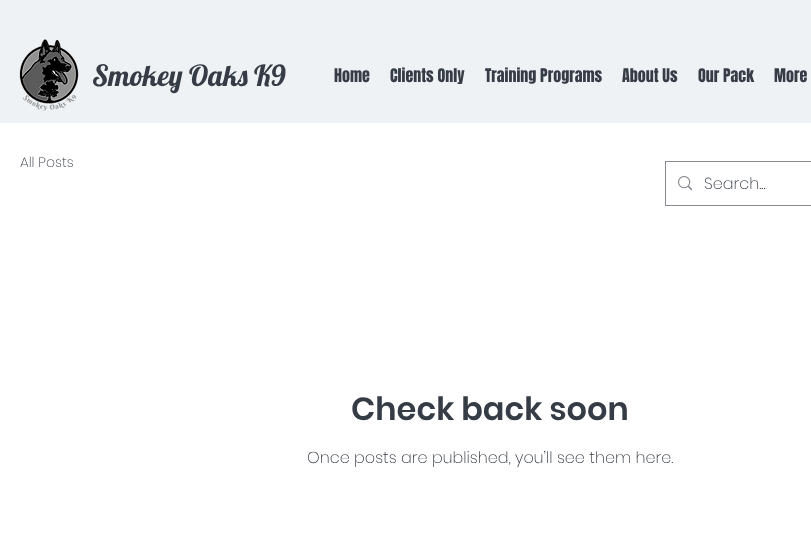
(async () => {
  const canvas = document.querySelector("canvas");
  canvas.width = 811;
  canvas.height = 547;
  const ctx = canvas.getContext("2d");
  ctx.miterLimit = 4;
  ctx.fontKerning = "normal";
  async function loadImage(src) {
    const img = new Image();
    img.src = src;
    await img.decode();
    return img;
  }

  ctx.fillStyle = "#ffffff";
  ctx.fillRect(0, 0, 811, 547);
  ctx.fillStyle = "#eff2f5";
  ctx.fillRect(0, 0, 811, 123);
  ctx.drawImage(await loadImage("img/1.png"), 19, 39, 60, 72);
  ctx.strokeStyle = "#868a8f";
  ctx.strokeRect(665.5, 161.5, 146, 44);
  ctx.drawImage(await loadImage("img/2.png"), 678, 176, 14, 15);
  ctx.font = "29px Lobster";
  ctx.fillStyle = "#363c45";
  ctx.fillText("Smokey Oaks K9", 92, 86);
  ctx.font = "16px Anton";
  for (const [text, x, y] of [
    ["Home", 334, 82],
    ["Clients Only", 390, 82],
    ["Training Programs", 485, 82],
    ["About Us", 622, 82],
    ["Our Pack", 698, 82],
    ["More", 774, 82],
  ]) {
    ctx.fillText(text, x, y);
  }
  ctx.font = "200 14px Poppins";
  ctx.fillText("All Posts", 20, 167);
  ctx.font = "600 32px Poppins";
  ctx.fillText("Check back soon", 351, 420);
  ctx.font = "200 16px Poppins";
  ctx.fillText("Once posts are published, you’ll see them here.", 307, 463);
  ctx.fillText("Search...", 704, 189);
})();
